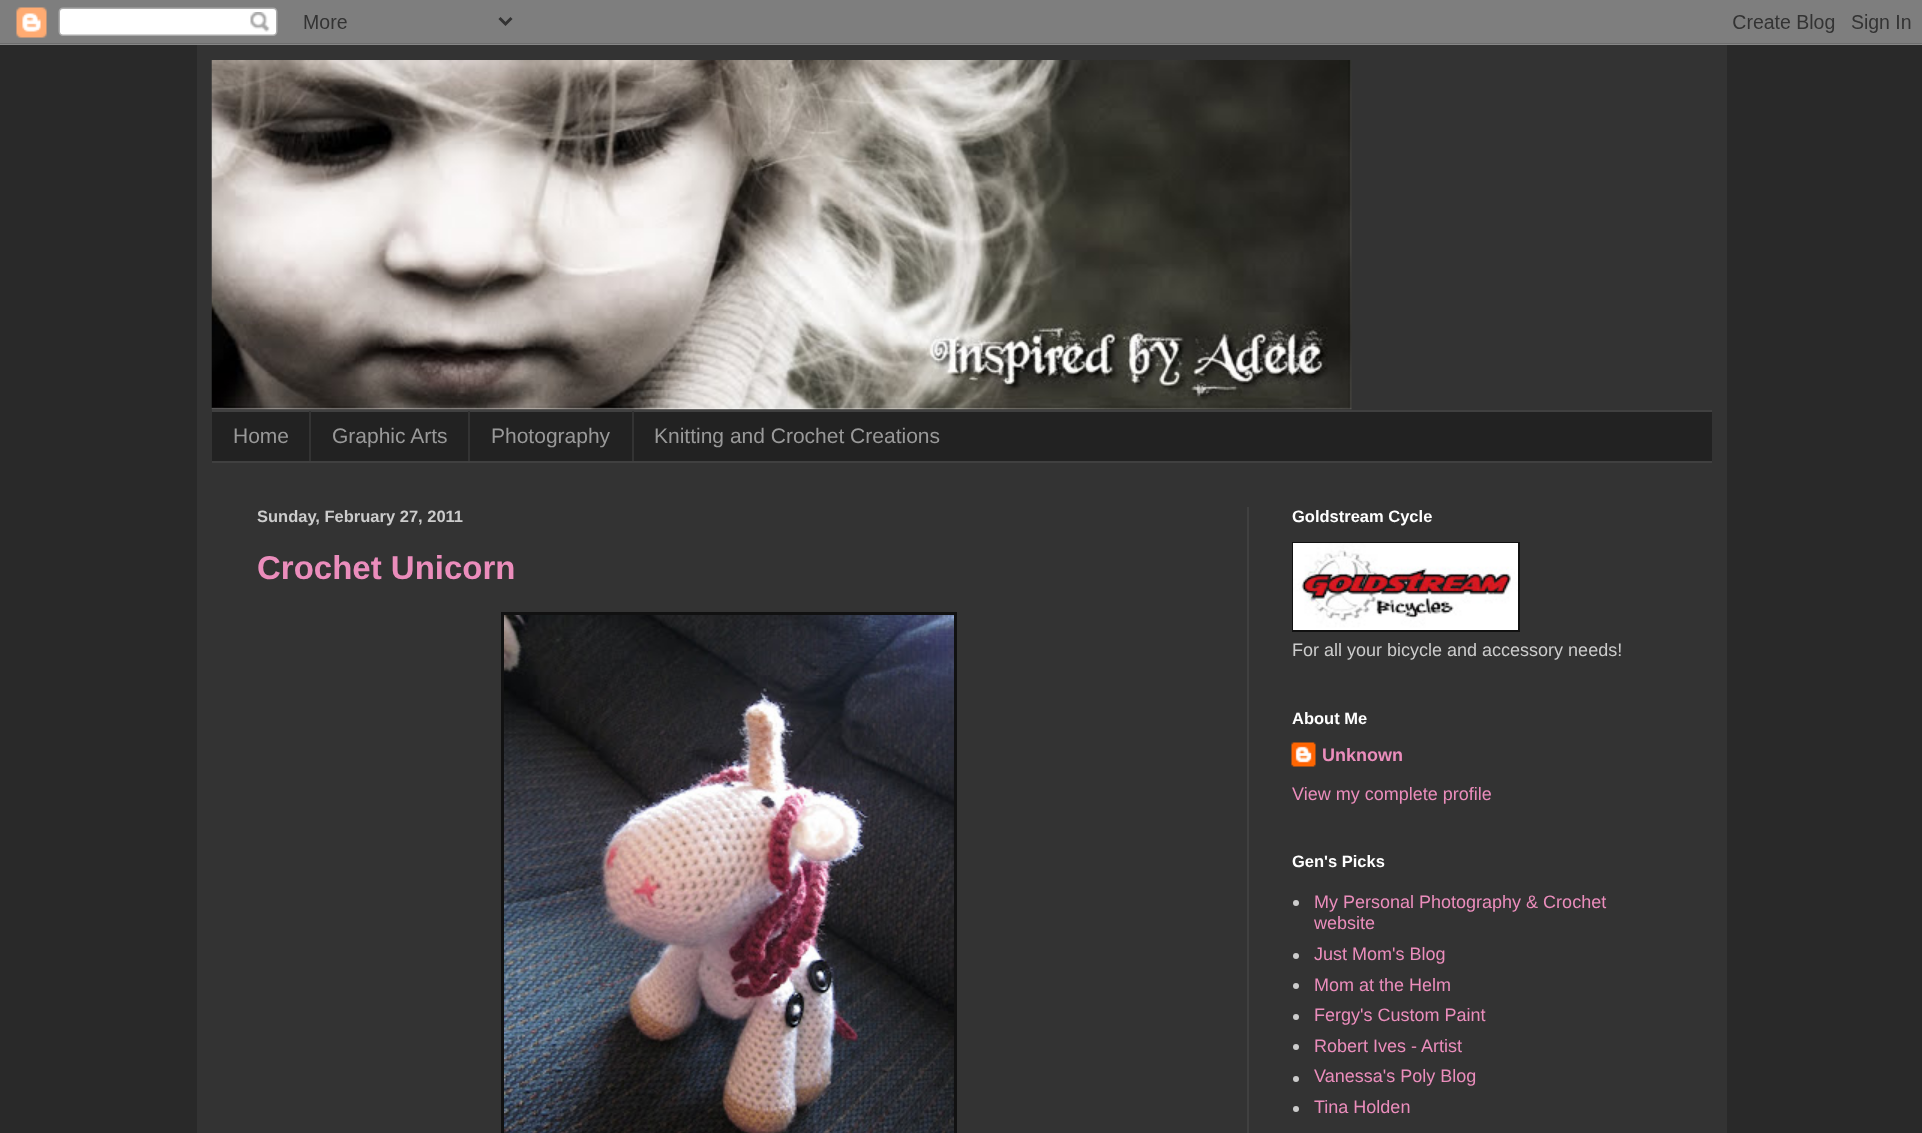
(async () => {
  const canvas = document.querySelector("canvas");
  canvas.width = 1922;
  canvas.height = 1133;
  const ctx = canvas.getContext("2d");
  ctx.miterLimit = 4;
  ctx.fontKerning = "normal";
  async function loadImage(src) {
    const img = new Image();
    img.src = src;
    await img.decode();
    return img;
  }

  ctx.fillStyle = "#292929";
  ctx.fillRect(0, 0, 1922, 1133);
  ctx.drawImage(await loadImage("img/1.png"), 0, 0, 1922, 45);
  ctx.fillStyle = "#333333";
  ctx.fillRect(197, 45, 1530, 1088);
  ctx.drawImage(await loadImage("img/2.png"), 211, 60, 1141, 350);
  for (const [x, y, w, h, color] of [
    [212, 412, 1500, 49, "#222222"],
    [212, 410, 1500, 2, "#404040"],
    [212, 461, 1500, 2, "#404040"],
    [309, 411, 2, 50, "#333333"],
    [468, 411, 2, 50, "#333333"],
    [632, 411, 2, 50, "#333333"],
    [1247, 507, 2, 626, "#404040"],
    [501, 612, 456, 521, "#111111"],
  ]) {
    ctx.fillStyle = color;
    ctx.fillRect(x, y, w, h);
  }
  ctx.drawImage(await loadImage("img/3.png"), 504, 615, 450, 518);
  ctx.fillRect(1292, 542, 228, 90);
  ctx.drawImage(await loadImage("img/4.png"), 1293, 543, 225, 87);
  ctx.drawImage(await loadImage("img/5.png"), 1291, 742, 25, 25);
  ctx.fillStyle = "#cccccc";
  ctx.beginPath();
  ctx.arc(1296, 903, 3, 0, Math.PI * 2);
  ctx.fill();
  ctx.beginPath();
  ctx.arc(1296, 956, 3, 0, Math.PI * 2);
  ctx.fill();
  ctx.beginPath();
  ctx.arc(1296, 986, 3, 0, Math.PI * 2);
  ctx.fill();
  ctx.beginPath();
  ctx.arc(1296, 1017, 3, 0, Math.PI * 2);
  ctx.fill();
  ctx.beginPath();
  ctx.arc(1296, 1047, 3, 0, Math.PI * 2);
  ctx.fill();
  ctx.beginPath();
  ctx.arc(1296, 1079, 3, 0, Math.PI * 2);
  ctx.fill();
  ctx.beginPath();
  ctx.arc(1296, 1109, 3, 0, Math.PI * 2);
  ctx.fill();
  ctx.font = "21px Liberation Sans";
  ctx.fillStyle = "#999999";
  for (const [text, x, y] of [
    ["Home", 233, 443],
    ["Graphic Arts", 332, 443],
    ["Photography", 491, 443],
    ["Knitting and Crochet Creations", 654, 443],
  ]) {
    ctx.fillText(text, x, y);
  }
  ctx.font = "bold 16.5px Liberation Sans";
  ctx.fillStyle = "#cccccc";
  ctx.fillText("Sunday, February 27, 2011", 257, 522);
  ctx.font = "bold 33px Liberation Sans";
  ctx.fillStyle = "#eb8dbc";
  ctx.fillText("Crochet Unicorn", 257, 579);
  ctx.font = "bold 16.5px Liberation Sans";
  ctx.fillStyle = "#ffffff";
  ctx.fillText("Goldstream Cycle", 1292, 522);
  ctx.font = "18px Liberation Sans";
  ctx.fillStyle = "#cccccc";
  ctx.fillText("For all your bicycle and accessory needs!", 1292, 656);
  ctx.font = "bold 16.5px Liberation Sans";
  ctx.fillStyle = "#ffffff";
  ctx.fillText("About Me", 1292, 724);
  ctx.font = "bold 18px Liberation Sans";
  ctx.fillStyle = "#eb8dbc";
  ctx.fillText("Unknown", 1322, 761);
  ctx.font = "18px Liberation Sans";
  ctx.fillText("View my complete profile", 1292, 800);
  ctx.font = "bold 16.5px Liberation Sans";
  ctx.fillStyle = "#ffffff";
  ctx.fillText("Gen's Picks", 1292, 867);
  ctx.font = "18px Liberation Sans";
  ctx.fillStyle = "#eb8dbc";
  for (const [text, x, y] of [
    ["My Personal Photography & Crochet", 1314, 908],
    ["website", 1314, 929],
    ["Just Mom's Blog", 1314, 960],
    ["Mom at the Helm", 1314, 991],
    ["Fergy's Custom Paint", 1314, 1021],
    ["Robert Ives - Artist", 1314, 1052],
    ["Vanessa's Poly Blog", 1314, 1082],
    ["Tina Holden", 1314, 1113],
  ]) {
    ctx.fillText(text, x, y);
  }
})();
